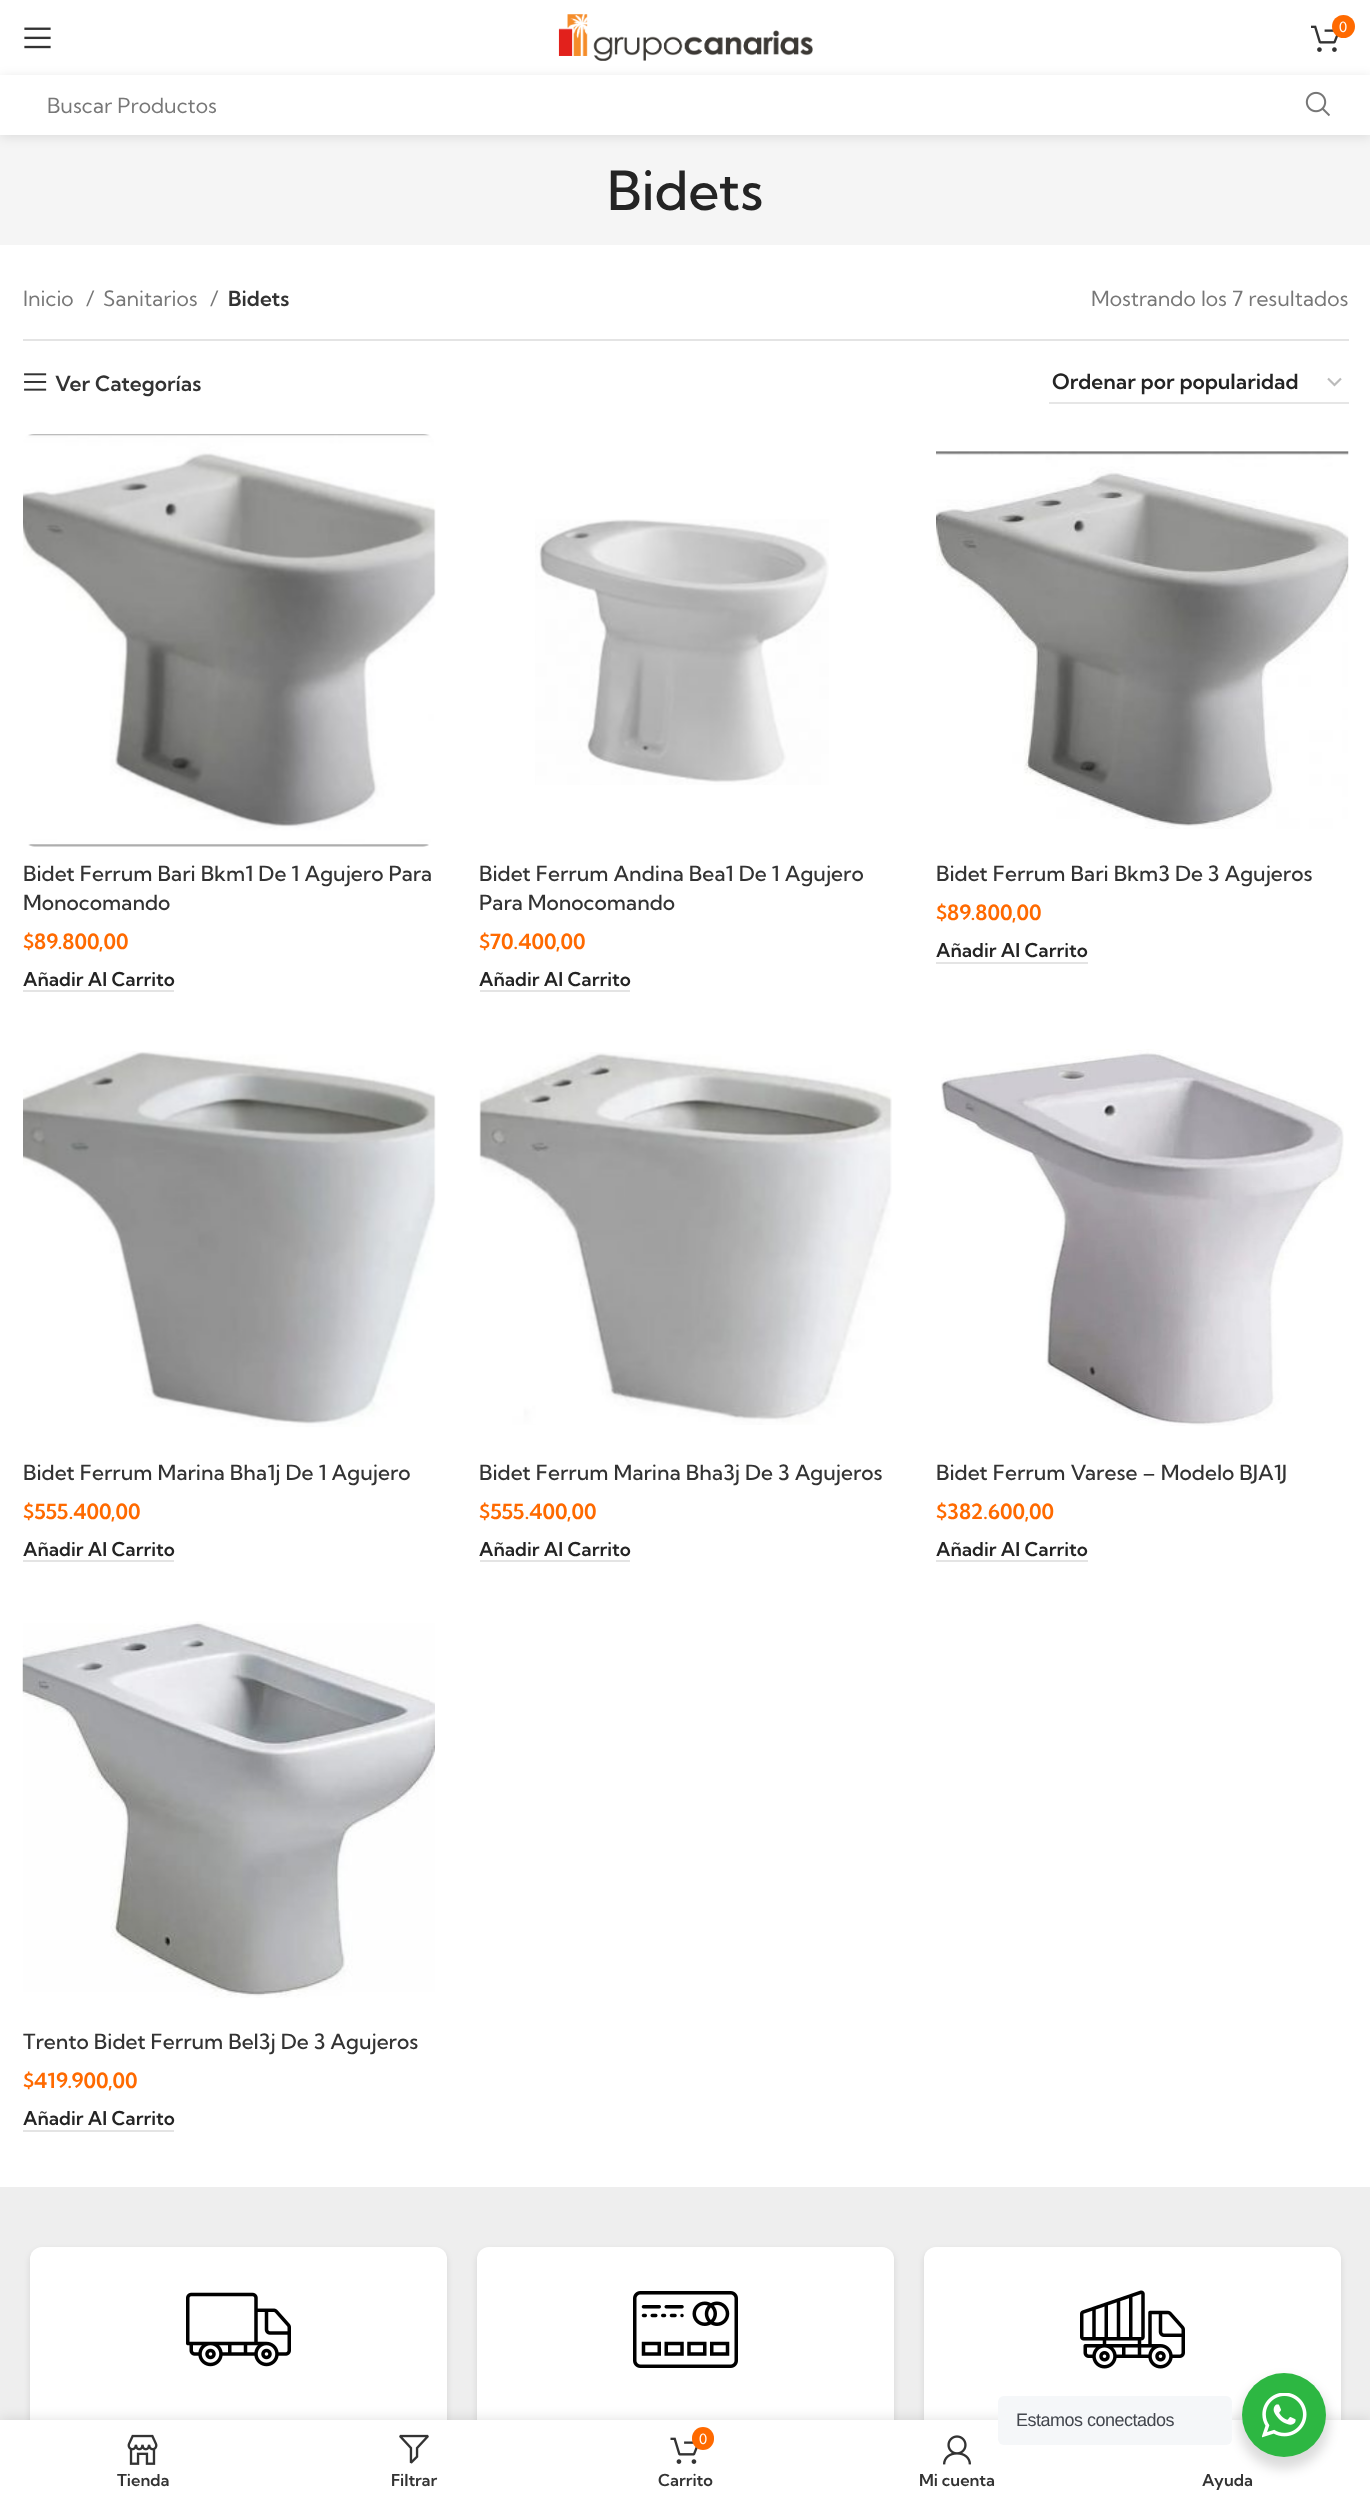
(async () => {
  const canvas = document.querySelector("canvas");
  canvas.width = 1370;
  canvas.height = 2501;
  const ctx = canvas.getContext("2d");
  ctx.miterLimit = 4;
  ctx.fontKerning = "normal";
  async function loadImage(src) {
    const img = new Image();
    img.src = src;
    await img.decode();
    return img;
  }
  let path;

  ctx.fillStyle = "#ffffff";
  ctx.fillRect(0, 0, 1370, 2501);
  ctx.drawImage(await loadImage("img/1.png"), 24, 27, 27, 22);
  ctx.fillStyle = "#f5f5f5";
  ctx.fillRect(0, 135, 1370, 110);
  ctx.save();
  path = new Path2D("M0 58H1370V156H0ZM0 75H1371V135H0Z");
  ctx.clip(path, "evenodd");
  ctx.fillStyle = "rgba(0, 0, 0, 0.1)";
  ctx.filter = "blur(6px)";
  ctx.beginPath();
  ctx.rect(0, 77, 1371, 60);
  ctx.fill();
  ctx.filter = "none";
  ctx.restore();
  ctx.drawImage(await loadImage("img/2.png"), 558, 14, 255, 47);
  ctx.drawImage(await loadImage("img/3.png"), 1311, 25, 28, 27);
  ctx.fillStyle = "#ff6a00";
  ctx.beginPath();
  ctx.arc(1343.5, 26.5, 11.5, 0, Math.PI * 2);
  ctx.fill();
  ctx.drawImage(await loadImage("img/4.png"), 1305, 91, 25, 26);
  ctx.fillStyle = "#e4e4e4";
  ctx.fillRect(23, 339, 1326, 2);
  ctx.drawImage(await loadImage("img/5.png"), 24, 373, 23, 18);
  path = new Path2D("M1328 378.5L1334.5 385L1341 378.5");
  ctx.strokeStyle = "#bbbbbb";
  ctx.lineWidth = 2.2;
  ctx.stroke(path);
  ctx.fillStyle = "#e6e6e6";
  ctx.fillRect(1049, 402, 300, 2);
  ctx.drawImage(await loadImage("img/6.png"), 23, 434, 413, 413);
  ctx.fillStyle = "#e4e4e4";
  ctx.fillRect(23, 990, 151, 2);
  ctx.drawImage(await loadImage("img/7.png"), 535, 519, 294, 266);
  ctx.fillRect(480, 990, 150, 2);
  ctx.drawImage(await loadImage("img/8.png"), 936, 451, 413, 378);
  ctx.fillRect(936, 962, 152, 2);
  ctx.drawImage(await loadImage("img/9.png"), 23, 1051, 413, 376);
  ctx.fillRect(23, 1560, 151, 2);
  ctx.drawImage(await loadImage("img/10.png"), 479, 1052, 413, 373);
  ctx.fillRect(480, 1560, 150, 2);
  ctx.drawImage(await loadImage("img/11.png"), 941, 1049, 403, 377);
  ctx.fillRect(936, 1560, 152, 2);
  ctx.drawImage(await loadImage("img/12.png"), 22, 1621, 413, 377);
  ctx.fillRect(23, 2130, 151, 2);
  ctx.fillStyle = "#eeeeee";
  ctx.fillRect(0, 2187, 1370, 233);
  ctx.fillStyle = "rgba(0, 0, 0, 0.1)";
  ctx.filter = "blur(3px)";
  ctx.beginPath();
  ctx.roundRect(30, 2250, 417, 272, 12);
  ctx.fill();
  ctx.filter = "none";
  ctx.fillStyle = "#ffffff";
  ctx.beginPath();
  ctx.roundRect(30, 2247, 417, 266, 12);
  ctx.fill();
  ctx.drawImage(await loadImage("img/13.png"), 186, 2292, 105, 75);
  ctx.fillStyle = "rgba(0, 0, 0, 0.1)";
  ctx.filter = "blur(3px)";
  ctx.beginPath();
  ctx.roundRect(477, 2250, 417, 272, 12);
  ctx.fill();
  ctx.filter = "none";
  ctx.fillStyle = "#ffffff";
  ctx.beginPath();
  ctx.roundRect(477, 2247, 417, 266, 12);
  ctx.fill();
  ctx.drawImage(await loadImage("img/14.png"), 633, 2291, 105, 77);
  ctx.fillStyle = "rgba(0, 0, 0, 0.1)";
  ctx.filter = "blur(3px)";
  ctx.beginPath();
  ctx.roundRect(924, 2250, 417, 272, 12);
  ctx.fill();
  ctx.filter = "none";
  ctx.fillStyle = "#ffffff";
  ctx.beginPath();
  ctx.roundRect(924, 2247, 417, 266, 12);
  ctx.fill();
  ctx.drawImage(await loadImage("img/15.png"), 1080, 2290, 105, 79);
  ctx.fillStyle = "rgba(0, 0, 0, 0.12)";
  ctx.filter = "blur(7px)";
  ctx.beginPath();
  ctx.rect(0, 2420, 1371, 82);
  ctx.fill();
  ctx.filter = "none";
  ctx.fillStyle = "#ffffff";
  ctx.fillRect(0, 2420, 1370, 81);
  ctx.fillStyle = "rgba(0, 0, 0, 0.14)";
  ctx.filter = "blur(6px)";
  ctx.beginPath();
  ctx.roundRect(1239, 2379, 90, 90, 45);
  ctx.fill();
  ctx.filter = "none";
  ctx.fillStyle = "#f5f7f9";
  ctx.beginPath();
  ctx.roundRect(998, 2396, 234, 49, 6);
  ctx.fill();
  ctx.fillStyle = "#2db742";
  ctx.beginPath();
  ctx.arc(1284, 2415, 42, 0, Math.PI * 2);
  ctx.fill();
  ctx.drawImage(await loadImage("img/16.png"), 1262, 2393, 45, 45);
  ctx.drawImage(await loadImage("img/17.png"), 127, 2434, 31, 31);
  ctx.drawImage(await loadImage("img/18.png"), 399, 2434, 30, 30);
  ctx.drawImage(await loadImage("img/19.png"), 670, 2437, 28, 27);
  ctx.fillStyle = "#ff6a00";
  ctx.beginPath();
  ctx.roundRect(692, 2427, 22, 23, 11);
  ctx.fill();
  ctx.drawImage(await loadImage("img/20.png"), 943, 2435, 28, 30);
  ctx.font = "14px Kumbh Sans";
  ctx.fillStyle = "#ffffff";
  ctx.fillText("0", 1339, 32);
  ctx.font = "21px Kumbh Sans";
  ctx.fillStyle = "#777777";
  ctx.fillText("Buscar Productos", 47, 113);
  ctx.font = "500 54px Kumbh Sans";
  ctx.fillStyle = "#242424";
  ctx.fillText("Bidets", 607, 210);
  ctx.font = "21px Kumbh Sans";
  ctx.fillStyle = "#777777";
  for (const [text, x, y] of [
    ["Inicio", 23, 306],
    ["/", 86, 306],
    ["Sanitarios", 103, 306],
    ["/", 210, 306],
  ]) {
    ctx.fillText(text, x, y);
  }
  ctx.font = "600 21px Kumbh Sans";
  ctx.fillStyle = "#333333";
  ctx.fillText("Bidets", 228, 306);
  ctx.font = "21px Kumbh Sans";
  ctx.fillStyle = "#777777";
  ctx.fillText("Mostrando los 7 resultados", 1091, 306);
  ctx.font = "600 21px Kumbh Sans";
  ctx.fillStyle = "#333333";
  ctx.fillText("Ver Categorías", 55, 391);
  ctx.fillStyle = "#242424";
  ctx.fillText("Ordenar por popularidad", 1052, 389);
  ctx.font = "500 21px Kumbh Sans";
  ctx.fillStyle = "#333333";
  ctx.fillText("Bidet Ferrum Bari Bkm1 De 1 Agujero Para", 23, 881);
  ctx.fillText("Monocomando", 23, 910);
  ctx.font = "600 21px Kumbh Sans";
  ctx.fillStyle = "#ff6a00";
  ctx.fillText("$89.800,00", 23, 949);
  ctx.font = "600 19px Kumbh Sans";
  ctx.fillStyle = "#242424";
  ctx.fillText("Añadir Al Carrito", 23, 986);
  ctx.font = "500 21px Kumbh Sans";
  ctx.fillStyle = "#333333";
  ctx.fillText("Bidet Ferrum Andina Bea1 De 1 Agujero", 479, 881);
  ctx.fillText("Para Monocomando", 479, 910);
  ctx.font = "600 21px Kumbh Sans";
  ctx.fillStyle = "#ff6a00";
  ctx.fillText("$70.400,00", 479, 949);
  ctx.font = "600 19px Kumbh Sans";
  ctx.fillStyle = "#242424";
  ctx.fillText("Añadir Al Carrito", 479, 986);
  ctx.font = "500 21px Kumbh Sans";
  ctx.fillStyle = "#333333";
  ctx.fillText("Bidet Ferrum Bari Bkm3 De 3 Agujeros", 936, 881);
  ctx.font = "600 21px Kumbh Sans";
  ctx.fillStyle = "#ff6a00";
  ctx.fillText("$89.800,00", 936, 920);
  ctx.font = "600 19px Kumbh Sans";
  ctx.fillStyle = "#242424";
  ctx.fillText("Añadir Al Carrito", 936, 957);
  ctx.font = "500 21px Kumbh Sans";
  ctx.fillStyle = "#333333";
  ctx.fillText("Bidet Ferrum Marina Bha1j De 1 Agujero", 23, 1480);
  ctx.font = "600 21px Kumbh Sans";
  ctx.fillStyle = "#ff6a00";
  ctx.fillText("$555.400,00", 23, 1519);
  ctx.font = "600 19px Kumbh Sans";
  ctx.fillStyle = "#242424";
  ctx.fillText("Añadir Al Carrito", 23, 1556);
  ctx.font = "500 21px Kumbh Sans";
  ctx.fillStyle = "#333333";
  ctx.fillText("Bidet Ferrum Marina Bha3j De 3 Agujeros", 479, 1480);
  ctx.font = "600 21px Kumbh Sans";
  ctx.fillStyle = "#ff6a00";
  ctx.fillText("$555.400,00", 479, 1519);
  ctx.font = "600 19px Kumbh Sans";
  ctx.fillStyle = "#242424";
  ctx.fillText("Añadir Al Carrito", 479, 1556);
  ctx.font = "500 21px Kumbh Sans";
  ctx.fillStyle = "#333333";
  ctx.fillText("Bidet Ferrum Varese – Modelo BJA1J", 936, 1480);
  ctx.font = "600 21px Kumbh Sans";
  ctx.fillStyle = "#ff6a00";
  ctx.fillText("$382.600,00", 936, 1519);
  ctx.font = "600 19px Kumbh Sans";
  ctx.fillStyle = "#242424";
  ctx.fillText("Añadir Al Carrito", 936, 1556);
  ctx.font = "500 21px Kumbh Sans";
  ctx.fillStyle = "#333333";
  ctx.fillText("Trento Bidet Ferrum Bel3j De 3 Agujeros", 23, 2049);
  ctx.font = "600 21px Kumbh Sans";
  ctx.fillStyle = "#ff6a00";
  ctx.fillText("$419.900,00", 23, 2088);
  ctx.font = "600 19px Kumbh Sans";
  ctx.fillStyle = "#242424";
  ctx.fillText("Añadir Al Carrito", 23, 2125);
  ctx.letterSpacing = "-0.5px";
  ctx.font = "18px Liberation Sans";
  ctx.fillStyle = "#43474e";
  ctx.fillText("Estamos conectados", 1016, 2426);
  ctx.letterSpacing = "0px";
  ctx.font = "600 16.5px Kumbh Sans";
  ctx.fillStyle = "#333333";
  ctx.fillText("Tienda", 117, 2486);
  ctx.fillText("Filtrar", 391, 2486);
  ctx.font = "14px Kumbh Sans";
  ctx.fillStyle = "#ffffff";
  ctx.fillText("0", 699, 2444);
  ctx.font = "600 16.5px Kumbh Sans";
  ctx.fillStyle = "#333333";
  for (const [text, x, y] of [
    ["Carrito", 658, 2486],
    ["Mi cuenta", 919, 2486],
    ["Ayuda", 1202, 2486],
  ]) {
    ctx.fillText(text, x, y);
  }
})();
